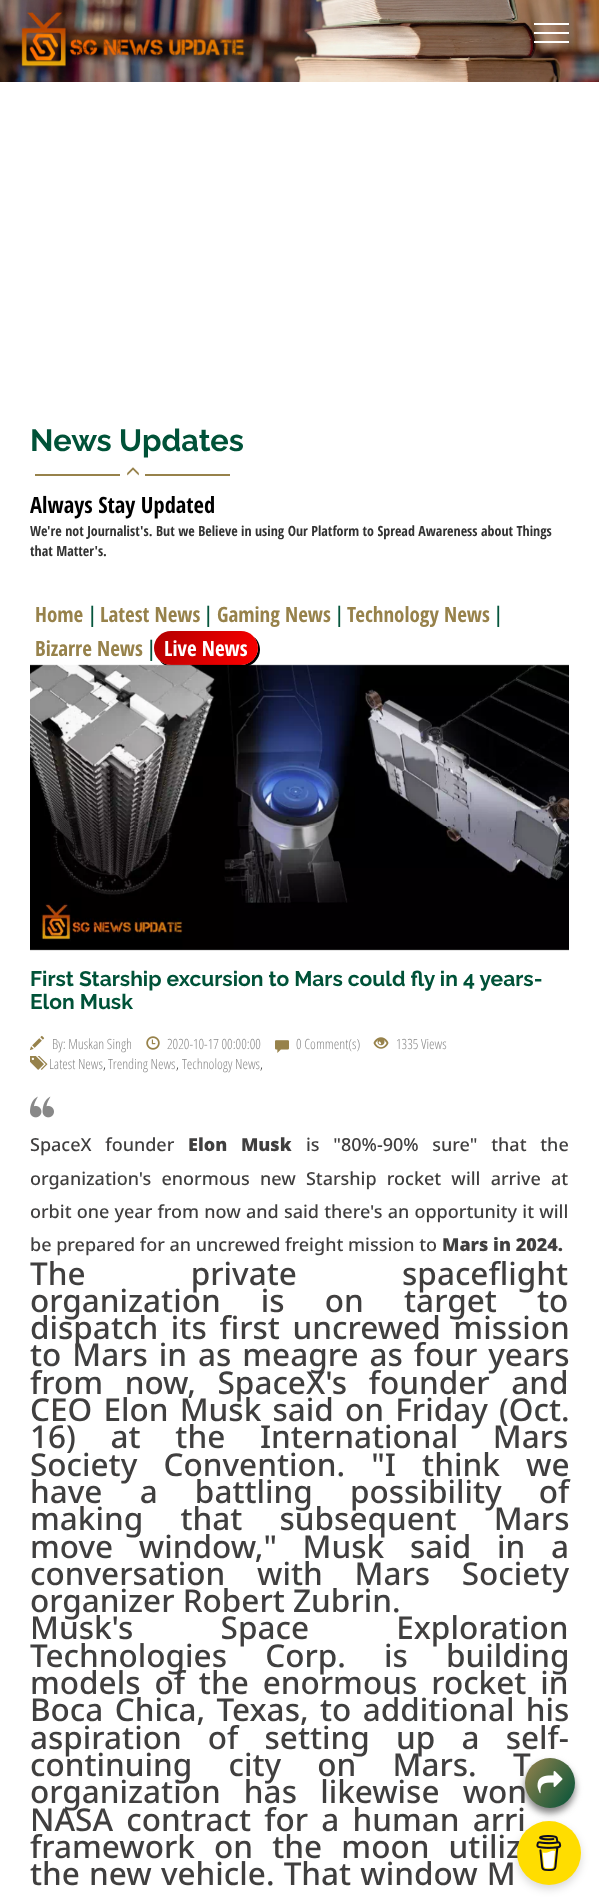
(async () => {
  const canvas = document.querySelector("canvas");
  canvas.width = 599;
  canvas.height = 1903;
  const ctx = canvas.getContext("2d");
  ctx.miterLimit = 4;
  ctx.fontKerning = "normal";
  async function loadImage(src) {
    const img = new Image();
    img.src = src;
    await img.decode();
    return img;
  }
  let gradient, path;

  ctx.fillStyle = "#ffffff";
  ctx.fillRect(0, 0, 599, 1903);
  ctx.drawImage(await loadImage("img/1.png"), 0, 0, 599, 82);
  ctx.drawImage(await loadImage("img/2.png"), 21, 12, 224, 55);
  for (const [x, y, w, h, color] of [
    [534, 32, 35, 2, "#ffffff"],
    [534, 23, 35, 2, "#ffffff"],
    [534, 41, 35, 2, "#ffffff"],
    [35, 474, 85, 2, "#97824b"],
  ]) {
    ctx.fillStyle = color;
    ctx.fillRect(x, y, w, h);
  }
  ctx.drawImage(await loadImage("img/3.png"), 127, 467, 12, 9);
  ctx.fillRect(145, 474, 85, 2);
  ctx.fillStyle = "#010101";
  path = new Path2D("M160 661C163 665 168 667 173 667H243C252 667 260 659 260 650C260 645 258 640 254 637C256 640 258 644 258 648C258 657 250 665 241 665H171C167 665 163 663 160 661Z");
  ctx.fill(path);
  gradient = ctx.createLinearGradient(163, 618, 249, 678);
  gradient.addColorStop(0, "#b20000");
  gradient.addColorStop(1, "#ff0000");
  ctx.fillStyle = gradient;
  ctx.beginPath();
  ctx.roundRect(154, 631, 104, 34, 17);
  ctx.fill();
  ctx.drawImage(await loadImage("img/4.png"), 30, 664, 539, 287);
  ctx.drawImage(await loadImage("img/5.png"), 29, 1035, 16, 16);
  ctx.drawImage(await loadImage("img/6.png"), 146, 1036, 14, 14);
  ctx.drawImage(await loadImage("img/7.png"), 275, 1040, 14, 13);
  ctx.drawImage(await loadImage("img/8.png"), 373, 1037, 16, 12);
  ctx.drawImage(await loadImage("img/9.png"), 30, 1056, 18, 14);
  ctx.drawImage(await loadImage("img/10.png"), 30, 1096, 24, 22);
  ctx.fillStyle = "#808080";
  ctx.filter = "blur(3.5px)";
  ctx.beginPath();
  ctx.roundRect(525, 1763, 50, 50, 25);
  ctx.fill();
  ctx.filter = "none";
  ctx.fillStyle = "rgba(0, 0, 0, 0.15)";
  ctx.filter = "blur(4px)";
  ctx.beginPath();
  ctx.roundRect(517, 1825, 64, 64, 32);
  ctx.fill();
  ctx.filter = "none";
  ctx.font = "bold 30.75px Raleway";
  ctx.fillStyle = "#005238";
  ctx.fillText("News Updates", 30, 451);
  ctx.font = "bold 22.5px Open Sans Condensed";
  ctx.fillStyle = "#000000";
  ctx.fillText("Always Stay Updated", 30, 513);
  ctx.font = "bold 14px Open Sans Condensed";
  ctx.fillStyle = "#333333";
  ctx.fillText("We're not Journalist's. But we Believe in using Our Platform to Spread Awareness about Things", 30, 536);
  ctx.fillText("that Matter's.", 30, 556);
  ctx.font = "bold 21px Open Sans Condensed";
  ctx.fillStyle = "#97824b";
  ctx.fillText("Home", 35, 622);
  ctx.font = "italic 22.5px Liberation Sans";
  ctx.fillStyle = "#06563d";
  ctx.fillText("|", 89, 622);
  ctx.font = "bold 21px Open Sans Condensed";
  ctx.fillStyle = "#97824b";
  ctx.fillText("Latest News", 100, 622);
  ctx.font = "italic 22.5px Liberation Sans";
  ctx.fillStyle = "#06563d";
  ctx.fillText("|", 205, 622);
  ctx.font = "bold 21px Open Sans Condensed";
  ctx.fillStyle = "#97824b";
  ctx.fillText("Gaming News", 217, 622);
  ctx.font = "italic 22.5px Liberation Sans";
  ctx.fillStyle = "#06563d";
  ctx.fillText("|", 336, 622);
  ctx.font = "bold 21px Open Sans Condensed";
  ctx.fillStyle = "#97824b";
  ctx.fillText("Technology News", 347, 622);
  ctx.font = "italic 22.5px Liberation Sans";
  ctx.fillStyle = "#06563d";
  ctx.fillText("|", 495, 622);
  ctx.font = "bold 21px Open Sans Condensed";
  ctx.fillStyle = "#97824b";
  ctx.fillText("Bizarre News", 35, 656);
  ctx.font = "italic 22.5px Liberation Sans";
  ctx.fillStyle = "#06563d";
  ctx.fillText("|", 148, 656);
  ctx.font = "bold 21px Open Sans Condensed";
  ctx.fillStyle = "#ffffff";
  ctx.fillText("Live News", 164, 656);
  ctx.font = "bold 21px Raleway";
  ctx.fillStyle = "#005238";
  ctx.fillText("First Starship excursion to Mars could fly in 4 years-", 30, 986);
  ctx.fillText("Elon Musk", 30, 1009);
  ctx.font = "300 14px Open Sans Condensed";
  ctx.fillStyle = "#8a8a8a";
  for (const [text, x, y] of [
    ["By: Muskan Singh", 52, 1049],
    ["2020-10-17 00:00:00", 167, 1049],
    ["0 Comment(s)", 296, 1049],
    ["1335 Views", 396, 1049],
    ["Latest News", 49, 1069],
  ]) {
    ctx.fillText(text, x, y);
  }
  ctx.fillStyle = "#333333";
  ctx.fillText(",", 103, 1069);
  ctx.fillStyle = "#8a8a8a";
  ctx.fillText("Trending News", 108, 1069);
  ctx.fillStyle = "#333333";
  ctx.fillText(",", 176, 1069);
  ctx.fillStyle = "#8a8a8a";
  ctx.fillText("Technology News", 182, 1069);
  ctx.fillStyle = "#333333";
  ctx.fillText(",", 260, 1069);
  ctx.wordSpacing = "9px";
  ctx.font = "500 18px Noto Sans";
  ctx.fillStyle = "#403f3f";
  ctx.fillText("SpaceX founder", 30, 1151);
  ctx.font = "900 18px Noto Sans";
  ctx.fillText("Elon Musk", 188, 1151);
  ctx.font = "500 18px Noto Sans";
  ctx.fillText("is \"80%-90% sure\" that the", 306, 1151);
  ctx.wordSpacing = "5.5px";
  ctx.fillText("organization's enormous new Starship rocket will arrive at", 30, 1185);
  ctx.wordSpacing = "0.5px";
  ctx.fillText("orbit one year from now and said there's an opportunity it will", 30, 1218);
  ctx.wordSpacing = "0px";
  ctx.fillText("be prepared for an uncrewed freight mission to", 30, 1251);
  ctx.font = "900 18px Noto Sans";
  ctx.fillText("Mars in 2024.", 442, 1251);
  ctx.wordSpacing = "97px";
  ctx.font = "500 31.5px Noto Sans";
  ctx.fillText("The private spaceflight", 30, 1285);
  ctx.wordSpacing = "32px";
  ctx.fillText("organization is on target to", 30, 1312);
  ctx.wordSpacing = "4.5px";
  ctx.fillText("dispatch its first uncrewed mission", 30, 1339);
  ctx.wordSpacing = "2.75px";
  ctx.fillText("to Mars in as meagre as four years", 30, 1366);
  ctx.wordSpacing = "13.5px";
  ctx.fillText("from now, SpaceX's founder and", 30, 1394);
  ctx.wordSpacing = "3px";
  ctx.fillText("CEO Elon Musk said on Friday (Oct.", 30, 1421);
  ctx.wordSpacing = "26.5px";
  ctx.fillText("16) at the International Mars", 30, 1448);
  ctx.wordSpacing = "18px";
  ctx.fillText("Society Convention. \"I think we", 30, 1476);
  ctx.wordSpacing = "29px";
  ctx.fillText("have a battling possibility of", 30, 1503);
  ctx.fillText("making that subsequent Mars", 30, 1530);
  ctx.wordSpacing = "17.5px";
  ctx.fillText("move window,\" Musk said in a", 30, 1558);
  ctx.wordSpacing = "23.5px";
  ctx.fillText("conversation with Mars Society", 30, 1585);
  ctx.wordSpacing = "0px";
  ctx.fillText("organizer Robert Zubrin.", 30, 1612);
  ctx.wordSpacing = "79px";
  ctx.fillText("Musk's Space Exploration", 30, 1639);
  ctx.wordSpacing = "30px";
  ctx.fillText("Technologies Corp. is building", 30, 1667);
  ctx.wordSpacing = "5.75px";
  ctx.fillText("models of the enormous rocket in", 30, 1694);
  ctx.wordSpacing = "3.25px";
  ctx.fillText("Boca Chica, Texas, to additional his", 30, 1721);
  ctx.wordSpacing = "18px";
  ctx.fillText("aspiration of setting up a self-", 30, 1749);
  ctx.wordSpacing = "28px";
  ctx.fillText("continuing city on Mars. T", 30, 1776);
  ctx.wordSpacing = "15px";
  ctx.fillText("organization has likewise won", 30, 1803);
  ctx.wordSpacing = "5px";
  ctx.fillText("NASA contract for a human arri", 30, 1831);
  ctx.wordSpacing = "11px";
  ctx.fillText("framework on the moon utiliz", 30, 1858);
  ctx.wordSpacing = "1px";
  ctx.fillText("the new vehicle. That window M", 30, 1885);
  gradient = ctx.createLinearGradient(521, 1763, 579, 1803);
  gradient.addColorStop(0, "#97824c");
  gradient.addColorStop(1, "#005238");
  ctx.fillStyle = gradient;
  ctx.beginPath();
  ctx.arc(550, 1783, 25, 0, Math.PI * 2);
  ctx.fill();
  ctx.drawImage(await loadImage("img/11.png"), 537, 1771, 26, 23);
  ctx.fillStyle = "#ffdd00";
  ctx.beginPath();
  ctx.arc(549, 1853, 32, 0, Math.PI * 2);
  ctx.fill();
  ctx.drawImage(await loadImage("img/12.png"), 536, 1835, 26, 36);
})();
